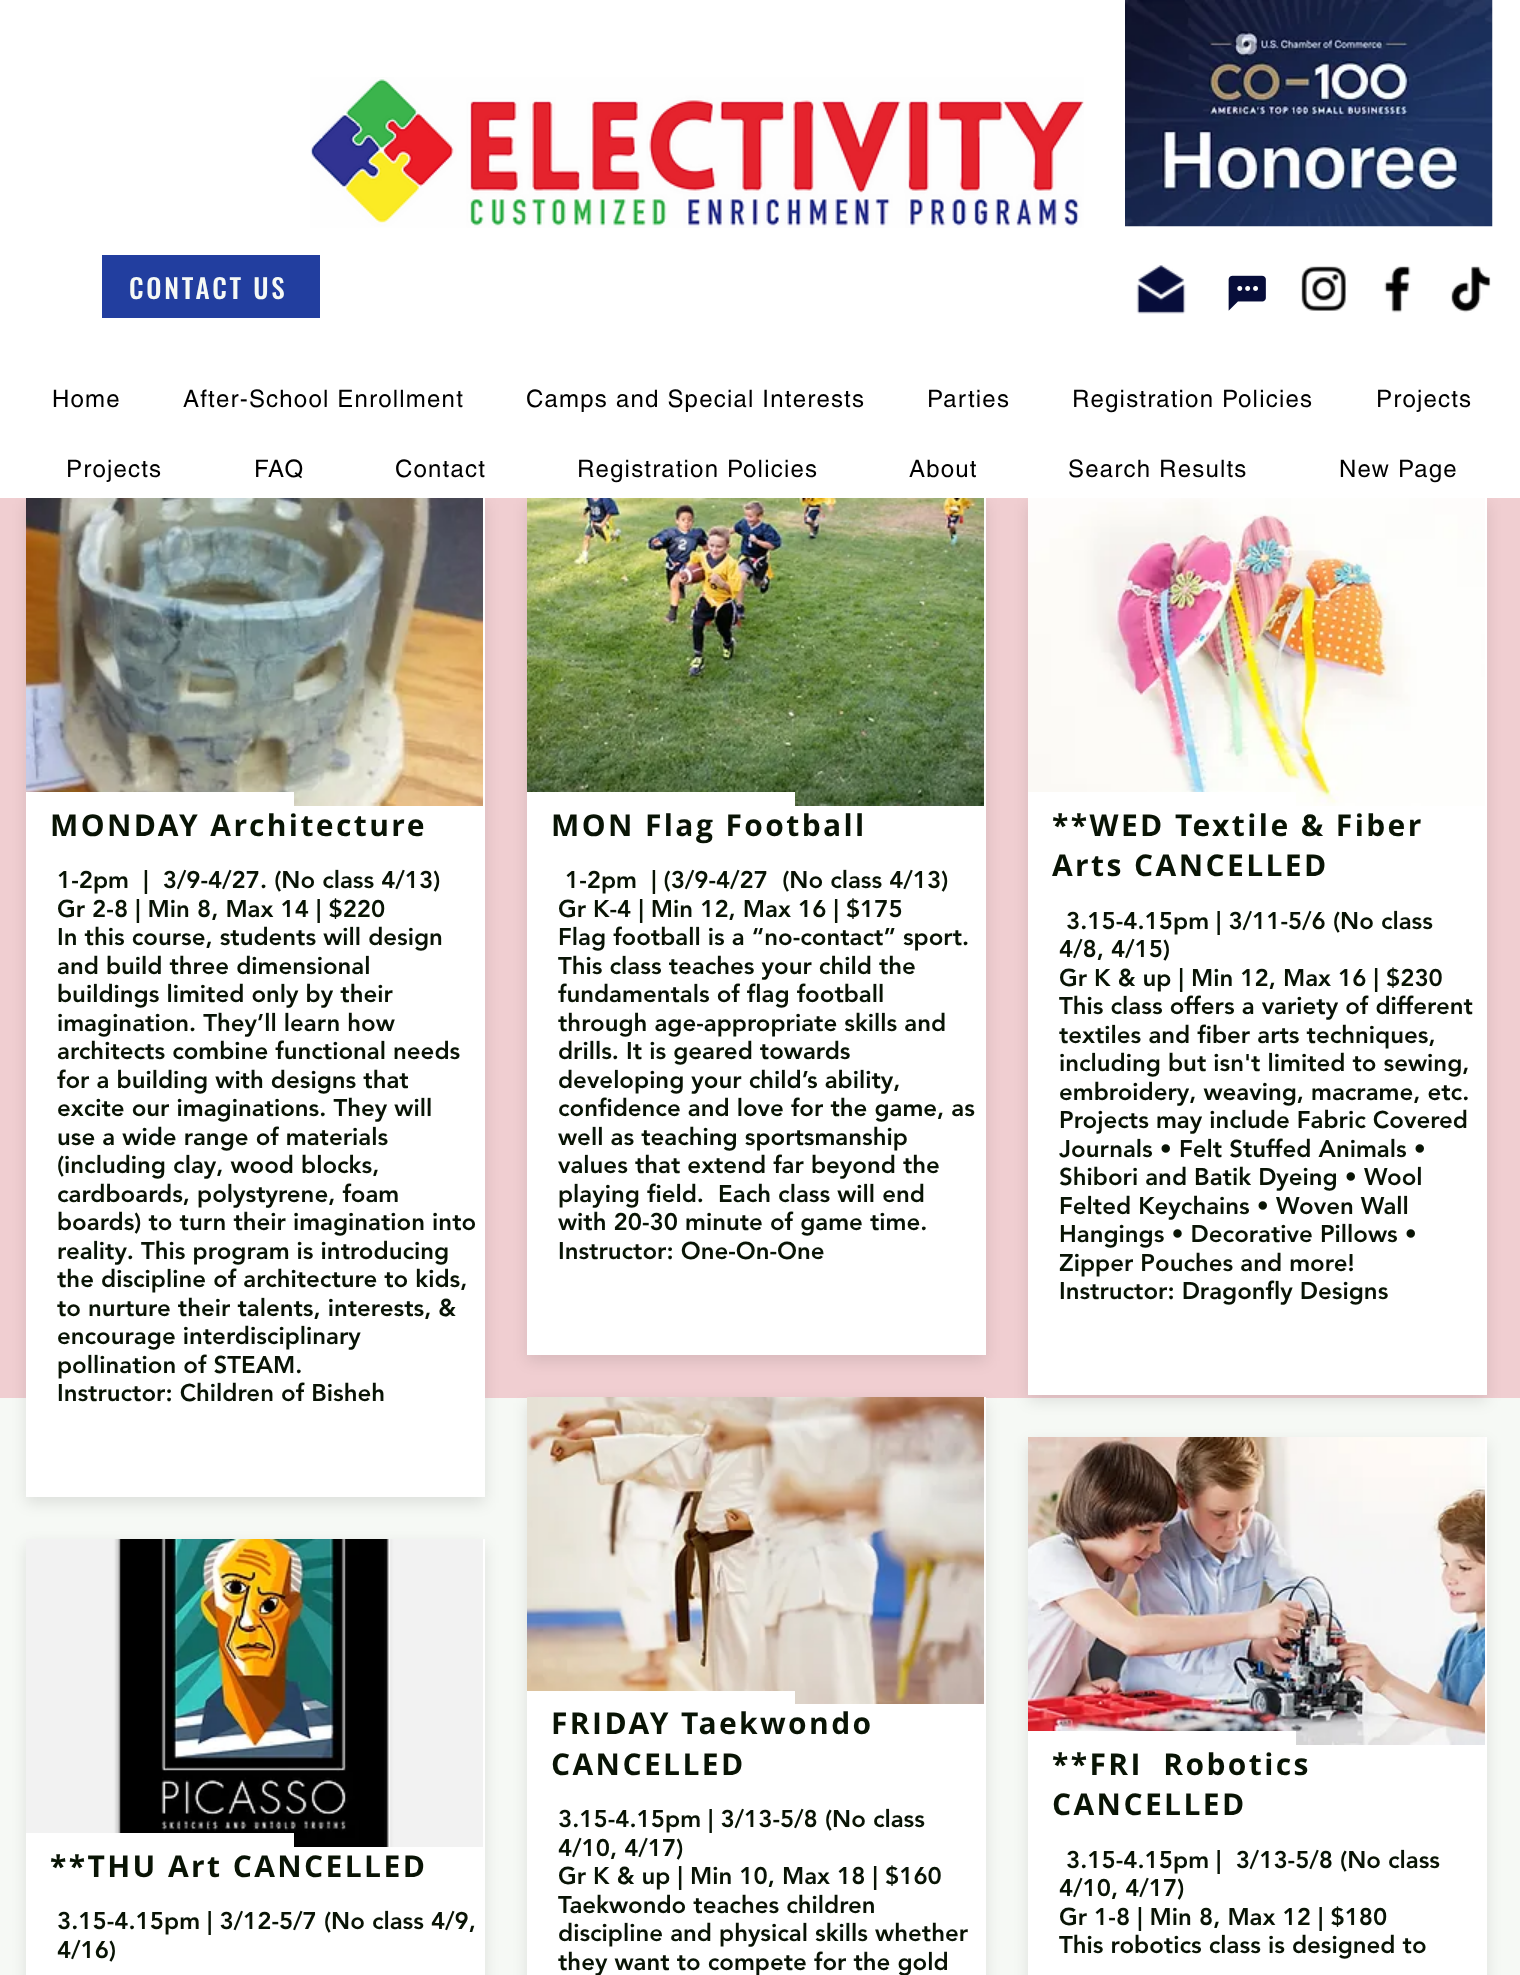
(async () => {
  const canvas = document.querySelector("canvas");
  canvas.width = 1520;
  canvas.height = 1975;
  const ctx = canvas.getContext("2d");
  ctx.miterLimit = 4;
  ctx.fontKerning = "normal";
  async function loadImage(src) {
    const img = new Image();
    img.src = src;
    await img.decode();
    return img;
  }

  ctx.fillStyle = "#f6f9f5";
  ctx.fillRect(0, 0, 1520, 1975);
  ctx.fillStyle = "#f0ced1";
  ctx.fillRect(0, 498, 1520, 900);
  ctx.fillStyle = "rgba(0, 0, 0, 0.1)";
  ctx.filter = "blur(7.5px)";
  ctx.beginPath();
  ctx.rect(26, 504, 459, 999);
  ctx.fill();
  ctx.filter = "none";
  ctx.filter = "blur(7.5px)";
  ctx.beginPath();
  ctx.rect(527, 504, 459, 857);
  ctx.fill();
  ctx.filter = "none";
  ctx.filter = "blur(7.5px)";
  ctx.beginPath();
  ctx.rect(1028, 504, 459, 897);
  ctx.fill();
  ctx.filter = "none";
  ctx.fillStyle = "#ffffff";
  ctx.fillRect(0, 0, 1520, 498);
  ctx.drawImage(await loadImage("img/1.png"), 310, 77, 774, 151);
  ctx.drawImage(await loadImage("img/2.png"), 1125, 0, 368, 227);
  ctx.fillStyle = "#223e9f";
  ctx.fillRect(102, 255, 218, 63);
  ctx.drawImage(await loadImage("img/3.png"), 1136, 265, 50, 49);
  ctx.drawImage(await loadImage("img/4.png"), 1228, 275, 38, 36);
  ctx.drawImage(await loadImage("img/5.png"), 1301, 266, 45, 45);
  ctx.drawImage(await loadImage("img/6.png"), 1384, 266, 27, 47);
  ctx.drawImage(await loadImage("img/7.png"), 1451, 266, 40, 47);
  ctx.fillStyle = "#ffffff";
  ctx.fillRect(26, 498, 459, 999);
  ctx.drawImage(await loadImage("img/8.png"), 26, 498, 457, 308);
  ctx.fillRect(26, 792, 268, 14);
  ctx.fillStyle = "rgba(0, 0, 0, 0.1)";
  ctx.filter = "blur(7.5px)";
  ctx.beginPath();
  ctx.rect(26, 1545, 459, 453);
  ctx.fill();
  ctx.filter = "none";
  ctx.fillStyle = "#ffffff";
  ctx.fillRect(26, 1539, 459, 436);
  ctx.drawImage(await loadImage("img/9.png"), 26, 1539, 457, 308);
  ctx.fillRect(26, 1833, 268, 14);
  ctx.fillRect(527, 498, 459, 857);
  ctx.drawImage(await loadImage("img/10.png"), 527, 498, 457, 308);
  ctx.fillRect(527, 792, 268, 14);
  ctx.fillStyle = "rgba(0, 0, 0, 0.1)";
  ctx.filter = "blur(7.5px)";
  ctx.beginPath();
  ctx.rect(527, 1403, 459, 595);
  ctx.fill();
  ctx.filter = "none";
  ctx.fillStyle = "#ffffff";
  ctx.fillRect(527, 1397, 459, 578);
  ctx.drawImage(await loadImage("img/11.png"), 527, 1397, 457, 307);
  ctx.fillRect(527, 1691, 268, 13);
  ctx.fillRect(1028, 498, 459, 897);
  ctx.drawImage(await loadImage("img/12.png"), 1028, 498, 457, 308);
  ctx.fillRect(1028, 792, 268, 14);
  ctx.fillStyle = "rgba(0, 0, 0, 0.1)";
  ctx.filter = "blur(7.5px)";
  ctx.beginPath();
  ctx.rect(1028, 1443, 459, 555);
  ctx.fill();
  ctx.filter = "none";
  ctx.fillStyle = "#ffffff";
  ctx.fillRect(1028, 1437, 459, 538);
  ctx.drawImage(await loadImage("img/13.png"), 1028, 1437, 457, 308);
  ctx.fillRect(1028, 1731, 268, 14);
  ctx.letterSpacing = "2.75px";
  ctx.font = "500 27px Oswald";
  ctx.fillStyle = "#f6f9f5";
  ctx.fillText("CONTACT US", 129, 299);
  ctx.letterSpacing = "1.2px";
  ctx.font = "24px helvetica";
  ctx.fillStyle = "#000000";
  for (const [text, x, y] of [
    ["Home", 52, 407],
    ["After-School Enrollment", 183, 407],
    ["Camps and Special Interests", 526, 407],
    ["Parties", 927, 407],
    ["Registration Policies", 1072, 407],
    ["Projects", 1376, 407],
    ["Projects", 66, 477],
    ["FAQ", 254, 477],
    ["Contact", 395, 477],
    ["Registration Policies", 577, 477],
    ["About", 909, 477],
    ["Search Results", 1068, 477],
    ["New Page", 1339, 477],
  ]) {
    ctx.fillText(text, x, y);
  }
  ctx.letterSpacing = "2.4px";
  ctx.font = "bold 30px Open Sans";
  ctx.fillStyle = "#091405";
  ctx.fillText("MONDAY Architecture", 50, 836);
  ctx.letterSpacing = "0px";
  ctx.font = "900 24px 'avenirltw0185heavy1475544'";
  for (const [text, x, y] of [
    ["1-2pm  |  3/9-4/27. (No class 4/13)", 57, 888],
    ["Gr 2-8 | Min 8, Max 14 | $220", 57, 917],
    ["In this course, students will design", 57, 945],
    ["and build three dimensional", 57, 974],
    ["buildings limited only by their", 57, 1002],
    ["imagination. They’ll learn how", 57, 1031],
    ["architects combine functional needs", 57, 1059],
    ["for a building with designs that", 57, 1088],
    ["excite our imaginations. They will", 57, 1116],
    ["use a wide range of materials", 57, 1145],
    ["(including clay, wood blocks,", 57, 1173],
    ["cardboards, polystyrene, foam", 57, 1202],
    ["boards) to turn their imagination into", 57, 1230],
    ["reality. This program is introducing", 57, 1259],
    ["the discipline of architecture to kids,", 57, 1287],
    ["to nurture their talents, interests, &", 57, 1316],
    ["encourage interdisciplinary", 57, 1344],
    ["pollination of STEAM.", 57, 1373],
    ["Instructor: Children of Bisheh", 57, 1401],
  ]) {
    ctx.fillText(text, x, y);
  }
  ctx.letterSpacing = "2.4px";
  ctx.font = "bold 30px Open Sans";
  ctx.fillText("**THU Art CANCELLED", 50, 1877);
  ctx.letterSpacing = "0px";
  ctx.font = "900 24px 'avenirltw0185heavy1475544'";
  ctx.fillText("3.15-4.15pm | 3/12-5/7 (No class 4/9,", 57, 1929);
  ctx.fillText("4/16)", 57, 1958);
  ctx.letterSpacing = "2.4px";
  ctx.font = "bold 30px Open Sans";
  ctx.fillText("MON Flag Football", 551, 836);
  ctx.letterSpacing = "0px";
  ctx.font = "900 24px 'avenirltw0185heavy1475544'";
  for (const [text, x, y] of [
    ["1-2pm  | (3/9-4/27  (No class 4/13)", 565, 888],
    ["Gr K-4 | Min 12, Max 16 | $175", 558, 917],
    ["Flag football is a “no-contact” sport.", 558, 945],
    ["This class teaches your child the", 558, 974],
    ["fundamentals of flag football", 558, 1002],
    ["through age-appropriate skills and", 558, 1031],
    ["drills. It is geared towards", 558, 1059],
    ["developing your child’s ability,", 558, 1088],
    ["confidence and love for the game, as", 558, 1116],
    ["well as teaching sportsmanship", 558, 1145],
    ["values that extend far beyond the", 558, 1173],
    ["playing field.  Each class will end", 558, 1202],
    ["with 20-30 minute of game time.", 558, 1230],
    ["Instructor: One-On-One", 558, 1259],
  ]) {
    ctx.fillText(text, x, y);
  }
  ctx.letterSpacing = "2.4px";
  ctx.font = "bold 30px Open Sans";
  ctx.fillText("FRIDAY Taekwondo", 551, 1734);
  ctx.fillText("CANCELLED", 551, 1775);
  ctx.letterSpacing = "0px";
  ctx.font = "900 24px 'avenirltw0185heavy1475544'";
  for (const [text, x, y] of [
    ["3.15-4.15pm | 3/13-5/8 (No class", 558, 1827],
    ["4/10, 4/17)", 558, 1856],
    ["Gr K & up | Min 10, Max 18 | $160", 558, 1884],
    ["Taekwondo teaches children", 558, 1913],
    ["discipline and physical skills whether", 558, 1941],
    ["they want to compete for the gold", 558, 1970],
  ]) {
    ctx.fillText(text, x, y);
  }
  ctx.letterSpacing = "2.4px";
  ctx.font = "bold 30px Open Sans";
  ctx.fillText("**WED Textile & Fiber", 1052, 836);
  ctx.fillText("Arts CANCELLED", 1052, 876);
  ctx.letterSpacing = "0px";
  ctx.font = "900 24px 'avenirltw0185heavy1475544'";
  for (const [text, x, y] of [
    ["3.15-4.15pm | 3/11-5/6 (No class", 1066, 929],
    ["4/8, 4/15)", 1059, 957],
    ["Gr K & up | Min 12, Max 16 | $230", 1059, 986],
    ["This class offers a variety of different", 1059, 1014],
    ["textiles and fiber arts techniques,", 1059, 1043],
    ["including but isn't limited to sewing,", 1059, 1071],
    ["embroidery, weaving, macrame, etc.", 1059, 1100],
    ["Projects may include Fabric Covered", 1059, 1128],
    ["Journals • Felt Stuffed Animals •", 1059, 1157],
    ["Shibori and Batik Dyeing • Wool", 1059, 1185],
    ["Felted Keychains • Woven Wall", 1059, 1214],
    ["Hangings • Decorative Pillows •", 1059, 1242],
    ["Zipper Pouches and more!", 1059, 1271],
    ["Instructor: Dragonfly Designs", 1059, 1299],
  ]) {
    ctx.fillText(text, x, y);
  }
  ctx.letterSpacing = "2.4px";
  ctx.font = "bold 30px Open Sans";
  ctx.fillText("**FRI  Robotics", 1052, 1775);
  ctx.fillText("CANCELLED", 1052, 1815);
  ctx.letterSpacing = "0px";
  ctx.font = "900 24px 'avenirltw0185heavy1475544'";
  for (const [text, x, y] of [
    ["3.15-4.15pm |  3/13-5/8 (No class", 1066, 1868],
    ["4/10, 4/17)", 1059, 1896],
    ["Gr 1-8 | Min 8, Max 12 | $180", 1059, 1925],
    ["This robotics class is designed to", 1059, 1953],
  ]) {
    ctx.fillText(text, x, y);
  }
})();
